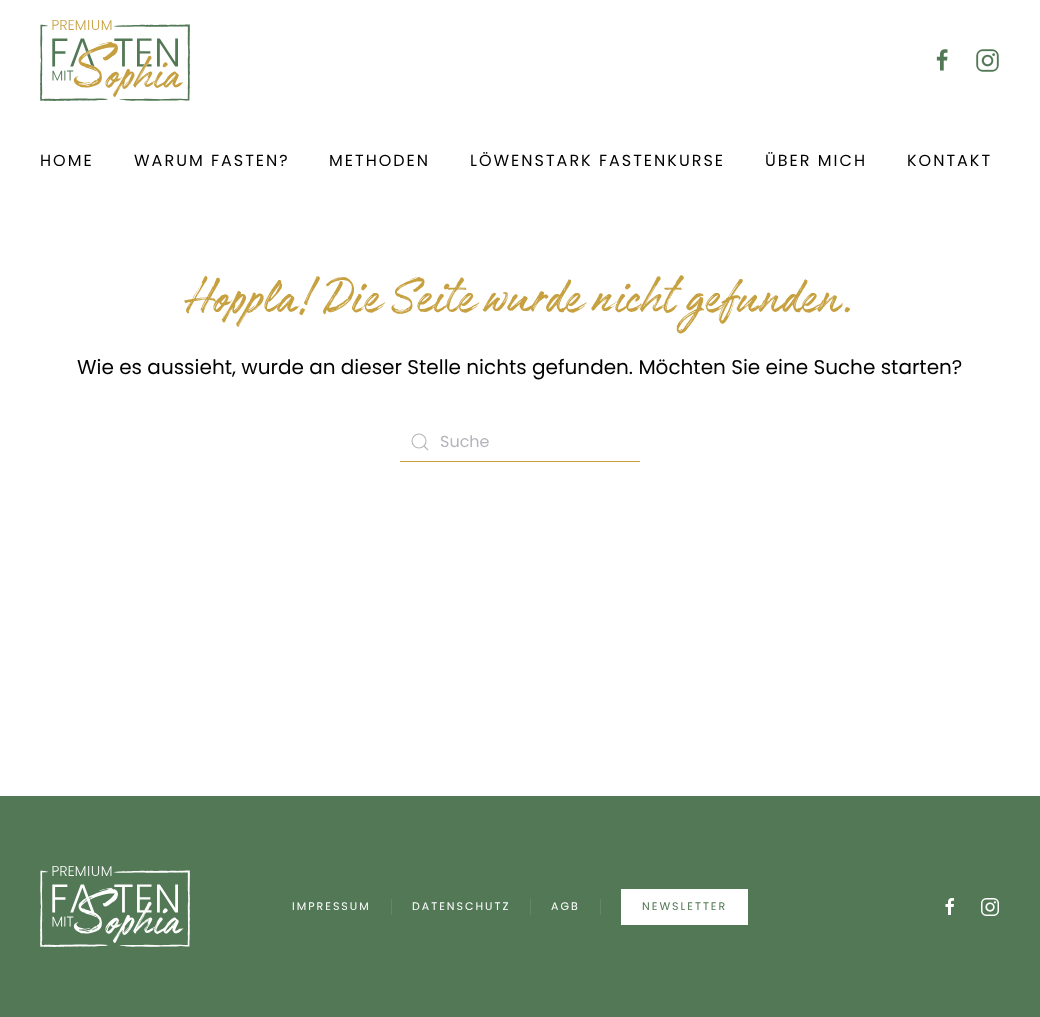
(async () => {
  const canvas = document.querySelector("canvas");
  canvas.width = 1040;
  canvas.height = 1017;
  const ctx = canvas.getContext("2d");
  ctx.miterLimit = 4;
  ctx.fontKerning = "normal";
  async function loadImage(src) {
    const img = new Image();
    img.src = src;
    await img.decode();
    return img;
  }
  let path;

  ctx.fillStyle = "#ffffff";
  ctx.fillRect(0, 0, 1040, 1017);
  ctx.drawImage(await loadImage("img/1.png"), 40, 20, 150, 81);
  ctx.drawImage(await loadImage("img/2.png"), 936, 49, 12, 22);
  ctx.drawImage(await loadImage("img/3.png"), 976, 49, 23, 23);
  ctx.beginPath();
  ctx.arc(419, 441, 7, 0, Math.PI * 2);
  ctx.strokeStyle = "#b4b5ba";
  ctx.lineWidth = 1.1;
  ctx.stroke();
  path = new Path2D("M424 446L428 450Z");
  ctx.stroke(path);
  ctx.fillStyle = "#c7a140";
  ctx.fillRect(400, 461, 240, 1);
  ctx.fillStyle = "#537856";
  ctx.fillRect(0, 796, 1040, 221);
  ctx.drawImage(await loadImage("img/4.png"), 40, 866, 150, 81);
  for (const [x, y, w, h, color] of [
    [391, 899, 1, 16, "#648667"],
    [530, 899, 1, 16, "#648667"],
    [600, 899, 1, 16, "#648667"],
    [621, 889, 127, 36, "#ffffff"],
  ]) {
    ctx.fillStyle = color;
    ctx.fillRect(x, y, w, h);
  }
  ctx.drawImage(await loadImage("img/5.png"), 945, 898, 9, 17);
  ctx.drawImage(await loadImage("img/6.png"), 981, 898, 18, 18);
  ctx.letterSpacing = "2px";
  ctx.font = "16px Poppins";
  ctx.fillStyle = "#000000";
  for (const [text, x, y] of [
    ["HOME", 40, 166],
    ["WARUM FASTEN?", 134, 166],
    ["METHODEN", 329, 166],
    ["LÖWENSTARK FASTENKURSE", 470, 166],
    ["ÜBER MICH", 765, 166],
    ["KONTAKT", 907, 166],
  ]) {
    ctx.fillText(text, x, y);
  }
  ctx.letterSpacing = "0px";
  ctx.font = "56px 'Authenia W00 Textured'";
  ctx.fillStyle = "#c7a140";
  ctx.fillText("Hoppla! Die Seite wurde nicht gefunden.", 187, 312);
  ctx.font = "20px Poppins";
  ctx.fillStyle = "#000000";
  ctx.fillText("Wie es aussieht, wurde an dieser Stelle nichts gefunden. Möchten Sie eine Suche starten?", 77, 374);
  ctx.font = "16px Poppins";
  ctx.fillStyle = "#b4b5ba";
  ctx.fillText("Suche", 440, 447);
  ctx.letterSpacing = "2px";
  ctx.font = "11px Poppins";
  ctx.fillStyle = "#ffffff";
  for (const [text, x, y] of [
    ["IMPRESSUM", 292, 910],
    ["DATENSCHUTZ", 412, 910],
    ["AGB", 551, 910],
  ]) {
    ctx.fillText(text, x, y);
  }
  ctx.fillStyle = "#537856";
  ctx.fillText("NEWSLETTER", 642, 910);
})();
